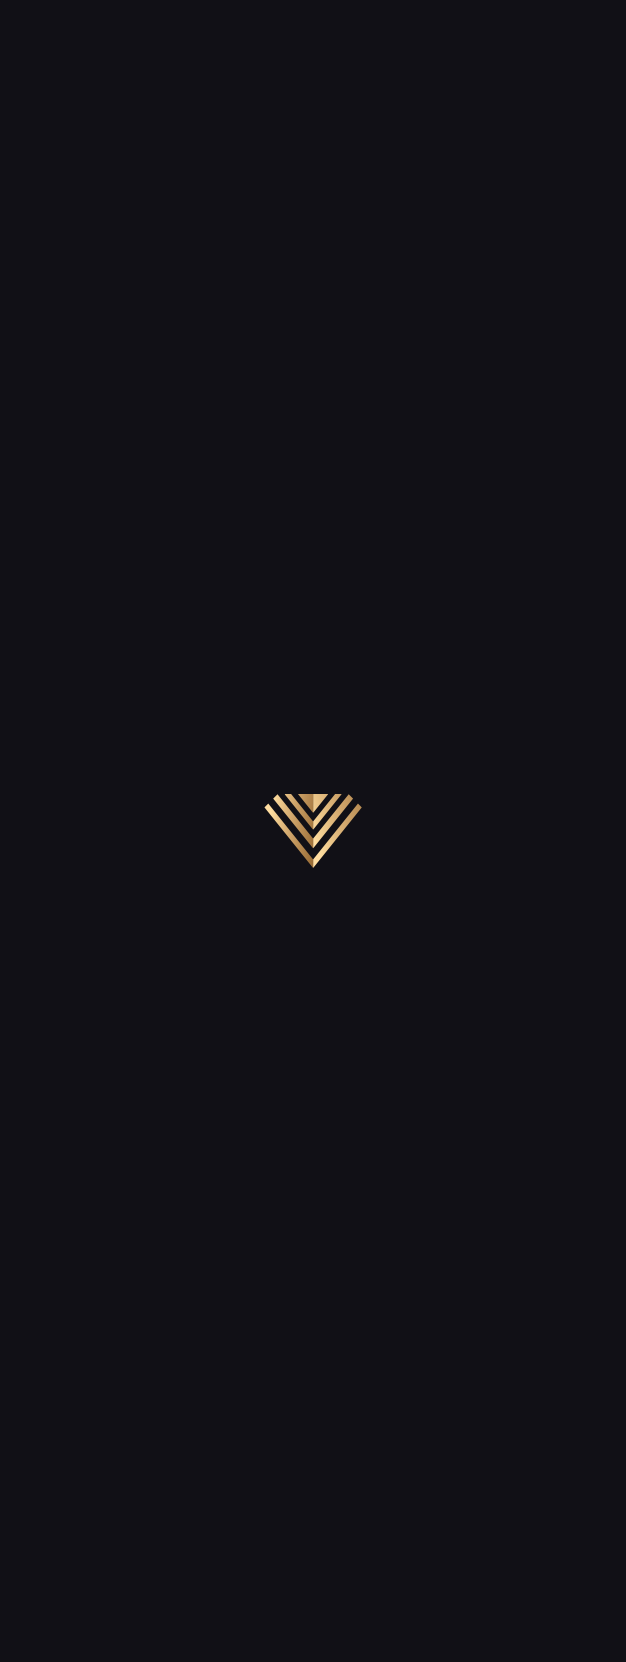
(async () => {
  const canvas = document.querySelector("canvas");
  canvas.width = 626;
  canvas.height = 1662;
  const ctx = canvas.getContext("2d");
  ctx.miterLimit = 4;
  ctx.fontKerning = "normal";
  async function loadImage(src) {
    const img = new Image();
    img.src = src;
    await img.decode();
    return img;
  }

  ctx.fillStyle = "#111016";
  ctx.fillRect(0, 0, 626, 1662);
  ctx.drawImage(await loadImage("img/1.png"), 264, 794, 98, 74);
})();
